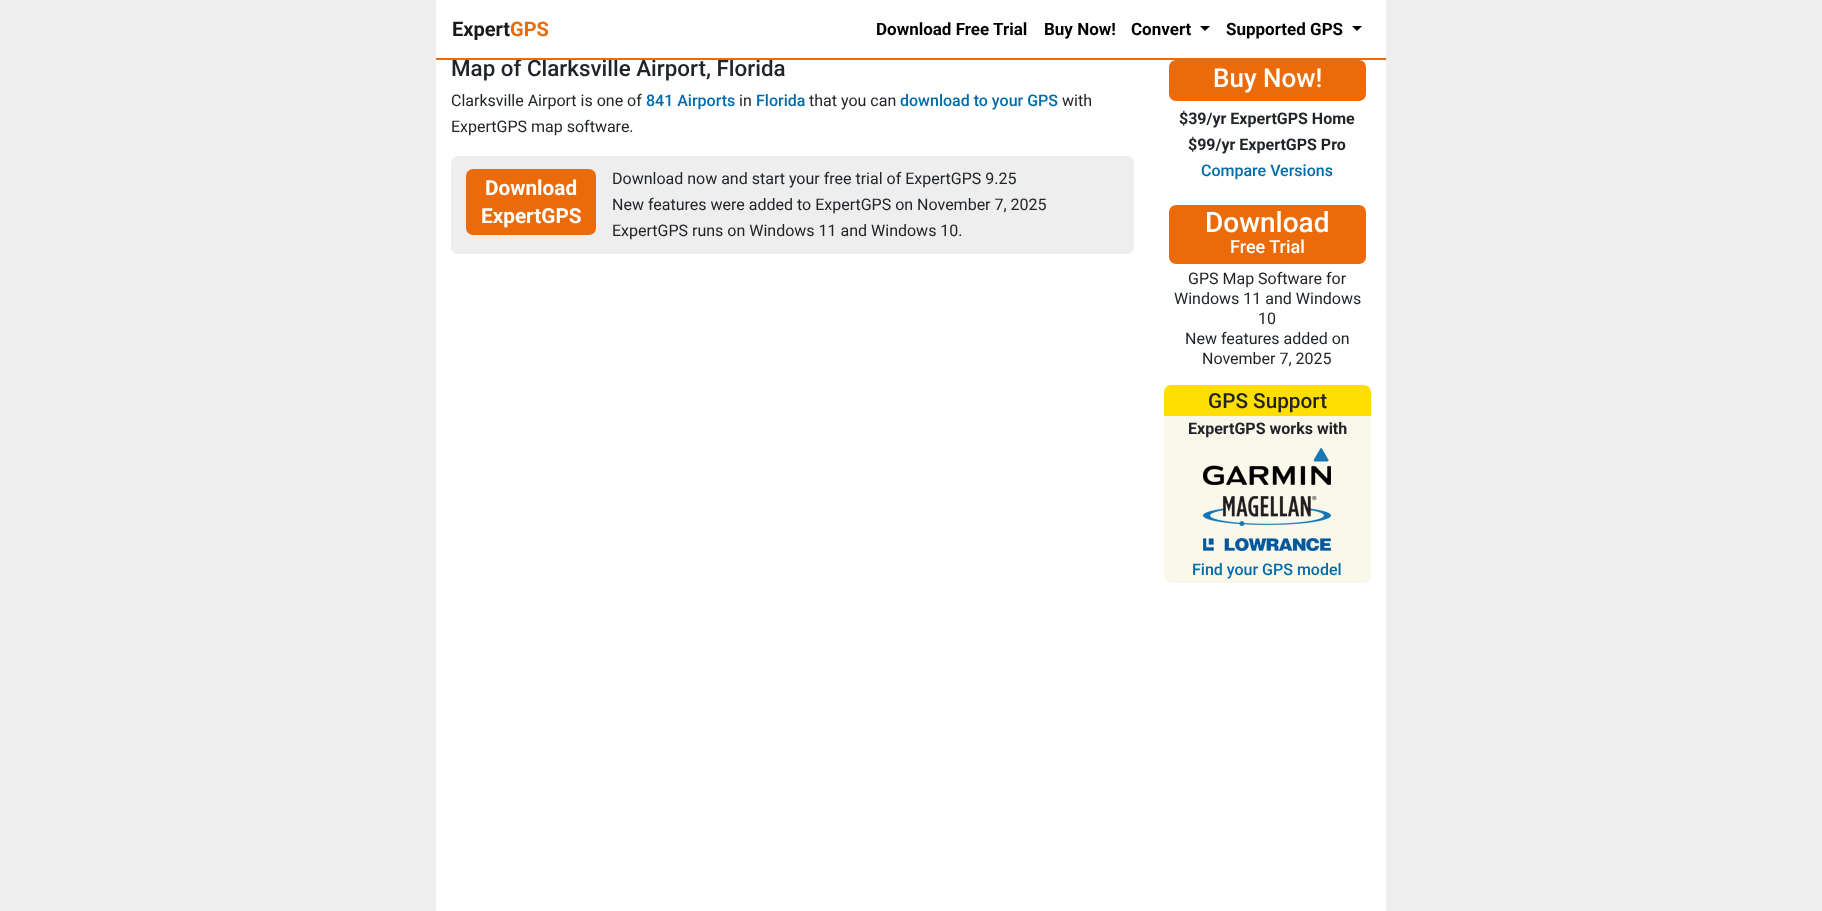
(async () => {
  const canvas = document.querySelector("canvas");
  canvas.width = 1822;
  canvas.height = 911;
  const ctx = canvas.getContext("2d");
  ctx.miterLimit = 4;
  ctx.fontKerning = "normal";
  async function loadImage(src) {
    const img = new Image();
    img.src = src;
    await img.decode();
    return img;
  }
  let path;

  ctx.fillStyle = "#eeeeee";
  ctx.fillRect(0, 0, 1822, 911);
  ctx.fillStyle = "#ffffff";
  ctx.fillRect(436, 60, 950, 851);
  ctx.fillRect(436, 0, 950, 58);
  ctx.fillStyle = "#000000";
  path = new Path2D("M1200 26H1210L1205 31Z");
  ctx.fill(path);
  path = new Path2D("M1352 26H1362L1357 31Z");
  ctx.fill(path);
  ctx.fillStyle = "#eeeeee";
  ctx.beginPath();
  ctx.roundRect(451, 156, 683, 98, 7);
  ctx.fill();
  ctx.fillStyle = "#eb6b0b";
  ctx.beginPath();
  ctx.roundRect(466, 169, 130, 66, 7);
  ctx.fill();
  ctx.beginPath();
  ctx.roundRect(1169, 60, 197, 41, 7);
  ctx.fill();
  ctx.beginPath();
  ctx.roundRect(1169, 205, 197, 59, 7);
  ctx.fill();
  ctx.fillStyle = "#ffde00";
  ctx.beginPath();
  ctx.roundRect(1164, 385, 207, 31, [7, 7, 0, 0]);
  ctx.fill();
  ctx.fillStyle = "#faf7eb";
  ctx.beginPath();
  ctx.roundRect(1164, 416, 207, 167, [0, 0, 7, 7]);
  ctx.fill();
  ctx.drawImage(await loadImage("img/1.png"), 1203, 448, 128, 37);
  ctx.drawImage(await loadImage("img/2.png"), 1203, 496, 128, 30);
  ctx.drawImage(await loadImage("img/3.png"), 1203, 538, 128, 13);
  ctx.font = "bold 20px Roboto";
  ctx.fillStyle = "#1a1a1a";
  ctx.fillText("Expert", 452, 36);
  ctx.fillStyle = "#eb6b0b";
  ctx.fillText("GPS", 510, 36);
  ctx.font = "bold 17px Roboto";
  ctx.fillStyle = "#000000";
  for (const [text, x, y] of [
    ["Download Free Trial", 876, 35],
    ["Buy Now!", 1044, 35],
    ["Convert", 1131, 35],
    ["Supported GPS", 1226, 35],
  ]) {
    ctx.fillText(text, x, y);
  }
  ctx.font = "500 22.4px Roboto";
  ctx.fillStyle = "#212529";
  ctx.fillText("Map of Clarksville Airport, Florida", 451, 76);
  ctx.fillStyle = "#eb6b0b";
  ctx.fillRect(436, 58, 950, 2);
  ctx.font = "16px Roboto";
  ctx.fillStyle = "#212529";
  ctx.fillText("Clarksville Airport is one of", 451, 106);
  ctx.font = "500 16px Roboto";
  ctx.fillStyle = "#006caa";
  ctx.fillText("841 Airports", 646, 106);
  ctx.font = "16px Roboto";
  ctx.fillStyle = "#212529";
  ctx.fillText("in", 739, 106);
  ctx.font = "500 16px Roboto";
  ctx.fillStyle = "#006caa";
  ctx.fillText("Florida", 756, 106);
  ctx.font = "16px Roboto";
  ctx.fillStyle = "#212529";
  ctx.fillText("that you can", 809, 106);
  ctx.font = "500 16px Roboto";
  ctx.fillStyle = "#006caa";
  ctx.fillText("download to your GPS", 900, 106);
  ctx.font = "16px Roboto";
  ctx.fillStyle = "#212529";
  ctx.fillText("with", 1062, 106);
  ctx.fillText("ExpertGPS map software.", 451, 132);
  ctx.font = "bold 20.75px Roboto";
  ctx.fillStyle = "#ffffff";
  ctx.fillText("Download", 485, 195);
  ctx.fillText("ExpertGPS", 481, 223);
  ctx.font = "16px Roboto";
  ctx.fillStyle = "#212529";
  for (const [text, x, y] of [
    ["Download now and start your free trial of ExpertGPS 9.25", 612, 184],
    ["New features were added to ExpertGPS on November 7, 2025", 612, 210],
    ["ExpertGPS runs on Windows 11 and Windows 10.", 612, 236],
  ]) {
    ctx.fillText(text, x, y);
  }
  ctx.font = "500 26px Roboto";
  ctx.fillStyle = "#ffffff";
  ctx.fillText("Buy Now!", 1213, 87);
  ctx.font = "bold 16px Roboto";
  ctx.fillStyle = "#212529";
  ctx.fillText("$39/yr ExpertGPS Home", 1179, 124);
  ctx.fillText("$99/yr ExpertGPS Pro", 1188, 150);
  ctx.font = "500 16px Roboto";
  ctx.fillStyle = "#006caa";
  ctx.fillText("Compare Versions", 1201, 176);
  ctx.font = "500 28px Roboto";
  ctx.fillStyle = "#ffffff";
  ctx.fillText("Download", 1205, 232);
  ctx.font = "500 18px Roboto";
  ctx.fillText("Free Trial", 1230, 253);
  ctx.font = "16px Roboto";
  ctx.fillStyle = "#212529";
  for (const [text, x, y] of [
    ["GPS Map Software for", 1188, 284],
    ["Windows 11 and Windows", 1174, 304],
    ["10", 1258, 324],
    ["New features added on", 1185, 344],
    ["November 7, 2025", 1202, 364],
  ]) {
    ctx.fillText(text, x, y);
  }
  ctx.font = "500 20.75px Roboto";
  ctx.fillText("GPS Support", 1208, 408);
  ctx.font = "bold 16px Roboto";
  ctx.fillText("ExpertGPS works with", 1188, 434);
  ctx.font = "500 16px Roboto";
  ctx.fillStyle = "#006caa";
  ctx.fillText("Find your GPS model", 1192, 575);
})();
